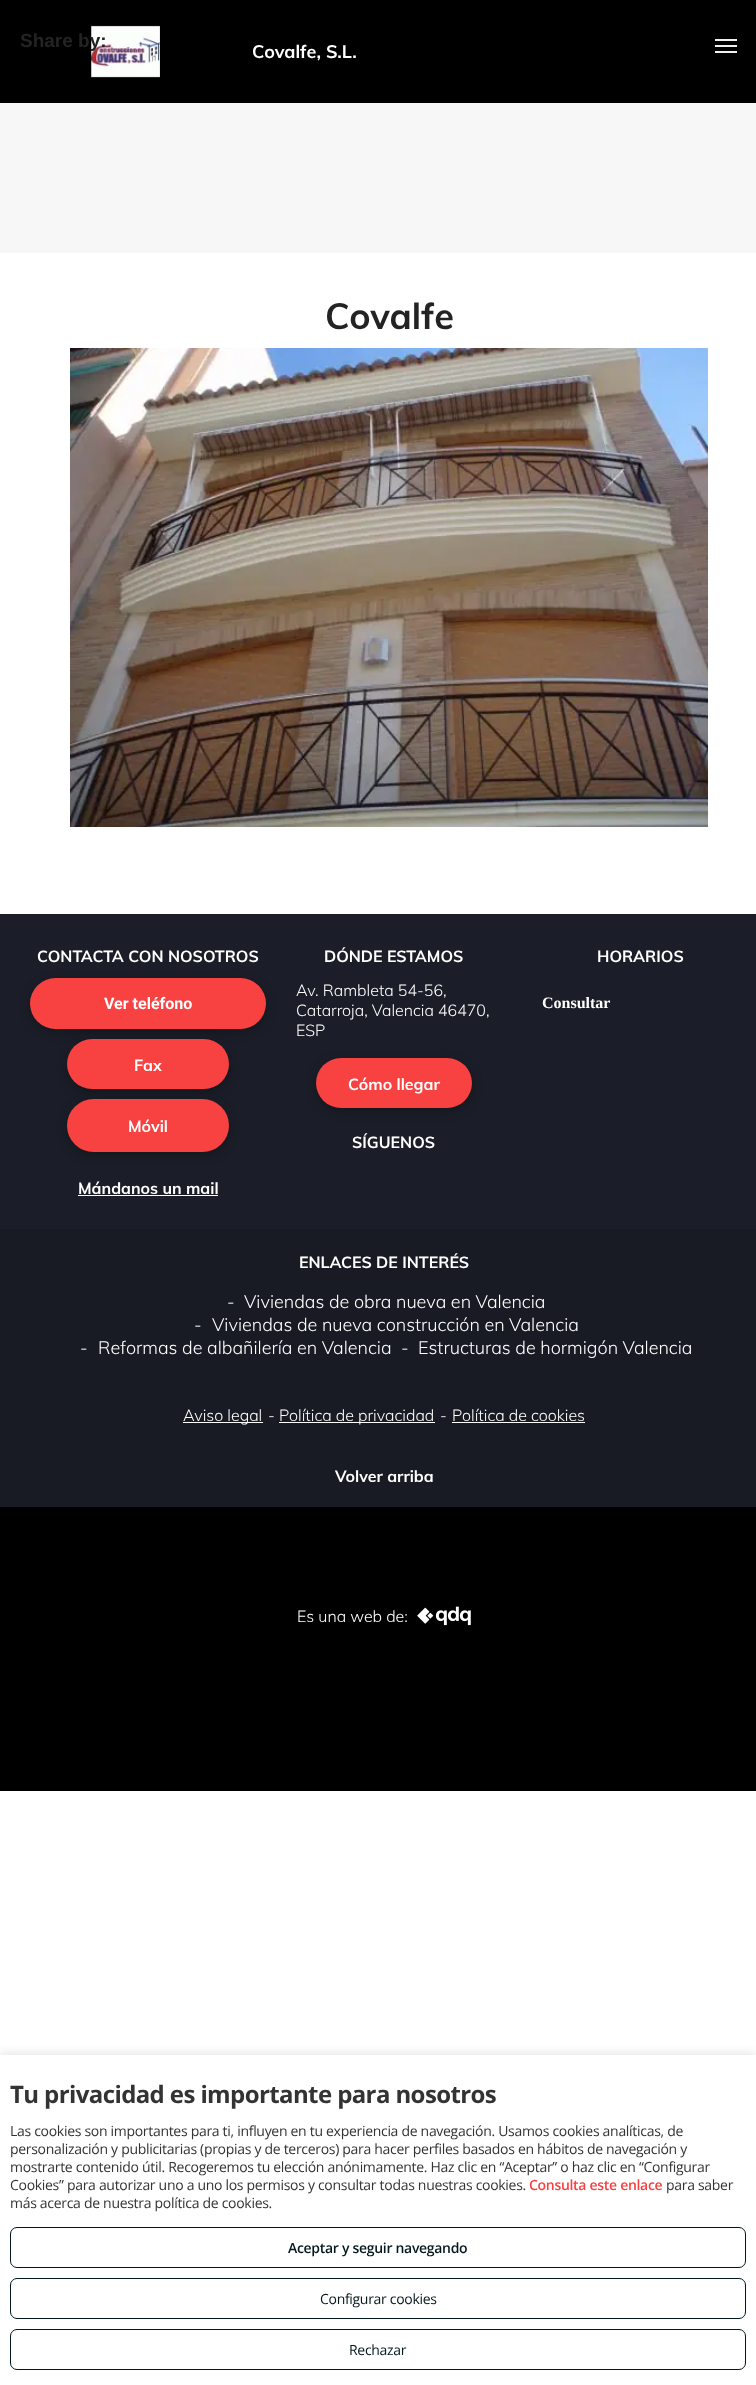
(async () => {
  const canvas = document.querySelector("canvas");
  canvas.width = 756;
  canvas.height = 2385;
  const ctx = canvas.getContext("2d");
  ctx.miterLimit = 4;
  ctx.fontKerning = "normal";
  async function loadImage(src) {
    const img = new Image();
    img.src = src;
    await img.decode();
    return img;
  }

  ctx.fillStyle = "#ffffff";
  ctx.fillRect(0, 0, 756, 2385);
  ctx.fillStyle = "#000000";
  ctx.fillRect(0, 0, 756, 103);
  ctx.drawImage(await loadImage("img/1.png"), 91, 25, 69, 53);
  for (const [x, y, w, h, color] of [
    [715, 39, 22, 2, "#f0f0f0"],
    [715, 45, 22, 2, "#f0f0f0"],
    [715, 51, 22, 2, "#f0f0f0"],
    [0, 103, 756, 150, "#f7f7f7"],
  ]) {
    ctx.fillStyle = color;
    ctx.fillRect(x, y, w, h);
  }
  ctx.drawImage(await loadImage("img/2.png"), 70, 348, 638, 479);
  ctx.fillStyle = "#1b1e28";
  ctx.fillRect(0, 914, 756, 315);
  ctx.fillStyle = "rgba(0, 0, 0, 0.25)";
  ctx.filter = "blur(5.5px)";
  ctx.beginPath();
  ctx.roundRect(30, 981, 236, 51, 25.5);
  ctx.fill();
  ctx.filter = "none";
  ctx.fillStyle = "#f84141";
  ctx.beginPath();
  ctx.roundRect(30, 978, 236, 51, 25.5);
  ctx.fill();
  ctx.fillStyle = "rgba(0, 0, 0, 0.25)";
  ctx.filter = "blur(5.5px)";
  ctx.beginPath();
  ctx.roundRect(67, 1042, 162, 50, 25);
  ctx.fill();
  ctx.filter = "none";
  ctx.fillStyle = "#f84141";
  ctx.beginPath();
  ctx.roundRect(67, 1039, 162, 50, 25);
  ctx.fill();
  ctx.fillStyle = "rgba(0, 0, 0, 0.25)";
  ctx.filter = "blur(5.5px)";
  ctx.beginPath();
  ctx.roundRect(67, 1102, 162, 53, 26.5);
  ctx.fill();
  ctx.filter = "none";
  ctx.fillStyle = "#f84141";
  ctx.beginPath();
  ctx.roundRect(67, 1099, 162, 53, 26.5);
  ctx.fill();
  ctx.fillStyle = "#ffffff";
  ctx.fillRect(78, 1195, 140, 1);
  ctx.fillStyle = "rgba(0, 0, 0, 0.25)";
  ctx.filter = "blur(5.5px)";
  ctx.beginPath();
  ctx.roundRect(316, 1061, 156, 50, 25);
  ctx.fill();
  ctx.filter = "none";
  ctx.fillStyle = "#f84141";
  ctx.beginPath();
  ctx.roundRect(316, 1058, 156, 50, 25);
  ctx.fill();
  for (const [x, y, w, h, color] of [
    [0, 1229, 756, 278, "#181b23"],
    [183, 1422, 80, 1, "#ffffff"],
    [279, 1422, 156, 1, "#ffffff"],
    [452, 1422, 133, 1, "#ffffff"],
    [0, 1507, 756, 284, "#000000"],
  ]) {
    ctx.fillStyle = color;
    ctx.fillRect(x, y, w, h);
  }
  ctx.drawImage(await loadImage("img/3.png"), 417, 1606, 54, 20);
  ctx.fillStyle = "rgba(0, 0, 0, 0.1)";
  ctx.filter = "blur(5px)";
  ctx.beginPath();
  ctx.rect(0, 2053, 756, 330);
  ctx.fill();
  ctx.filter = "none";
  ctx.fillStyle = "#ffffff";
  ctx.fillRect(0, 2055, 756, 330);
  ctx.beginPath();
  ctx.roundRect(10.5, 2227.5, 735, 40, 6.5);
  ctx.strokeStyle = "#03181e";
  ctx.stroke();
  ctx.beginPath();
  ctx.roundRect(10.5, 2278.5, 735, 40, 6.5);
  ctx.stroke();
  ctx.beginPath();
  ctx.roundRect(10.5, 2329.5, 735, 40, 6.5);
  ctx.stroke();
  ctx.font = "bold 19px Liberation Sans";
  ctx.fillStyle = "#232323";
  ctx.fillText("Share by:", 20, 47);
  ctx.font = "bold 18px Muli";
  ctx.fillStyle = "#ffffff";
  ctx.fillText("Covalfe, S.L.", 252, 58);
  ctx.font = "bold 36px Muli";
  ctx.fillStyle = "#232323";
  ctx.fillText("Covalfe", 325, 329);
  ctx.font = "bold 16px Muli";
  ctx.fillStyle = "#ffffff";
  ctx.fillText("CONTACTA CON NOSOTROS", 37, 962);
  ctx.font = "bold 16px Roboto";
  ctx.fillText("Ver teléfono", 104, 1009);
  ctx.font = "bold 16px Muli";
  for (const [text, x, y] of [
    ["Fax", 134, 1071],
    ["Móvil", 128, 1132],
    ["Mándanos un mail", 78, 1194],
    ["DÓNDE ESTAMOS", 324, 962],
  ]) {
    ctx.fillText(text, x, y);
  }
  ctx.font = "300 16px Muli";
  for (const [text, x, y] of [
    ["Av. Rambleta 54-56,", 296, 996],
    ["Catarroja, Valencia 46470,", 296, 1016],
    ["ESP", 296, 1036],
  ]) {
    ctx.fillText(text, x, y);
  }
  ctx.font = "bold 16px Muli";
  for (const [text, x, y] of [
    ["Cómo llegar", 348, 1090],
    ["SÍGUENOS", 352, 1148],
    ["HORARIOS", 597, 962],
  ]) {
    ctx.fillText(text, x, y);
  }
  ctx.font = "bold 16px Liberation Serif";
  ctx.fillText("Consultar", 542, 1008);
  ctx.font = "bold 16px Muli";
  ctx.fillText("ENLACES DE INTERÉS", 299, 1268);
  ctx.font = "300 18px Muli";
  for (const [text, x, y] of [
    ["-", 227, 1308],
    ["Viviendas de obra nueva en Valencia", 244, 1308],
    ["-", 194, 1331],
    ["Viviendas de nueva construcción en Valencia", 212, 1331],
    ["-", 80, 1354],
    ["Reformas de albañilería en Valencia", 98, 1354],
    ["-", 401, 1354],
    ["Estructuras de hormigón Valencia", 418, 1354],
  ]) {
    ctx.fillText(text, x, y);
  }
  ctx.font = "300 16px Muli";
  for (const [text, x, y] of [
    ["Aviso legal", 183, 1421],
    ["-", 268, 1421],
    ["Política de privacidad", 279, 1421],
    ["-", 440, 1421],
    ["Política de cookies", 452, 1421],
  ]) {
    ctx.fillText(text, x, y);
  }
  ctx.font = "bold 16px Muli";
  ctx.fillText("Volver arriba", 335, 1482);
  ctx.font = "300 16px Muli";
  ctx.fillText("Es una web de:", 297, 1622);
  ctx.letterSpacing = "-0.6px";
  ctx.font = "bold 24px Open Sans";
  ctx.fillStyle = "#333333";
  ctx.fillText("Tu privacidad es importante para nosotros", 10, 2103);
  ctx.letterSpacing = "-0.3px";
  ctx.font = "14px Open Sans";
  for (const [text, x, y] of [
    ["Las cookies son importantes para ti, influyen en tu experiencia de navegación. Usamos cookies analíticas, de", 10, 2136],
    ["personalización y publicitarias (propias y de terceros) para hacer perfiles basados en hábitos de navegación y", 10, 2154],
    ["mostrarte contenido útil. Recogeremos tu elección anónimamente. Haz clic en “Aceptar” o haz clic en “Configurar", 10, 2172],
    ["Cookies” para autorizar uno a uno los permisos y consultar todas nuestras cookies.", 10, 2190],
  ]) {
    ctx.fillText(text, x, y);
  }
  ctx.font = "600 14px Open Sans";
  ctx.fillStyle = "#f84141";
  ctx.fillText("Consulta este enlace", 529, 2190);
  ctx.font = "14px Open Sans";
  ctx.fillStyle = "#333333";
  ctx.fillText("para saber", 666, 2190);
  ctx.fillText("más acerca de nuestra política de cookies.", 10, 2208);
  ctx.font = "600 14px Open Sans";
  ctx.fillStyle = "#03181e";
  ctx.fillText("Aceptar y seguir navegando", 288, 2253);
  ctx.font = "14px Open Sans";
  ctx.fillText("Configurar cookies", 320, 2304);
  ctx.fillText("Rechazar", 349, 2355);
})();
